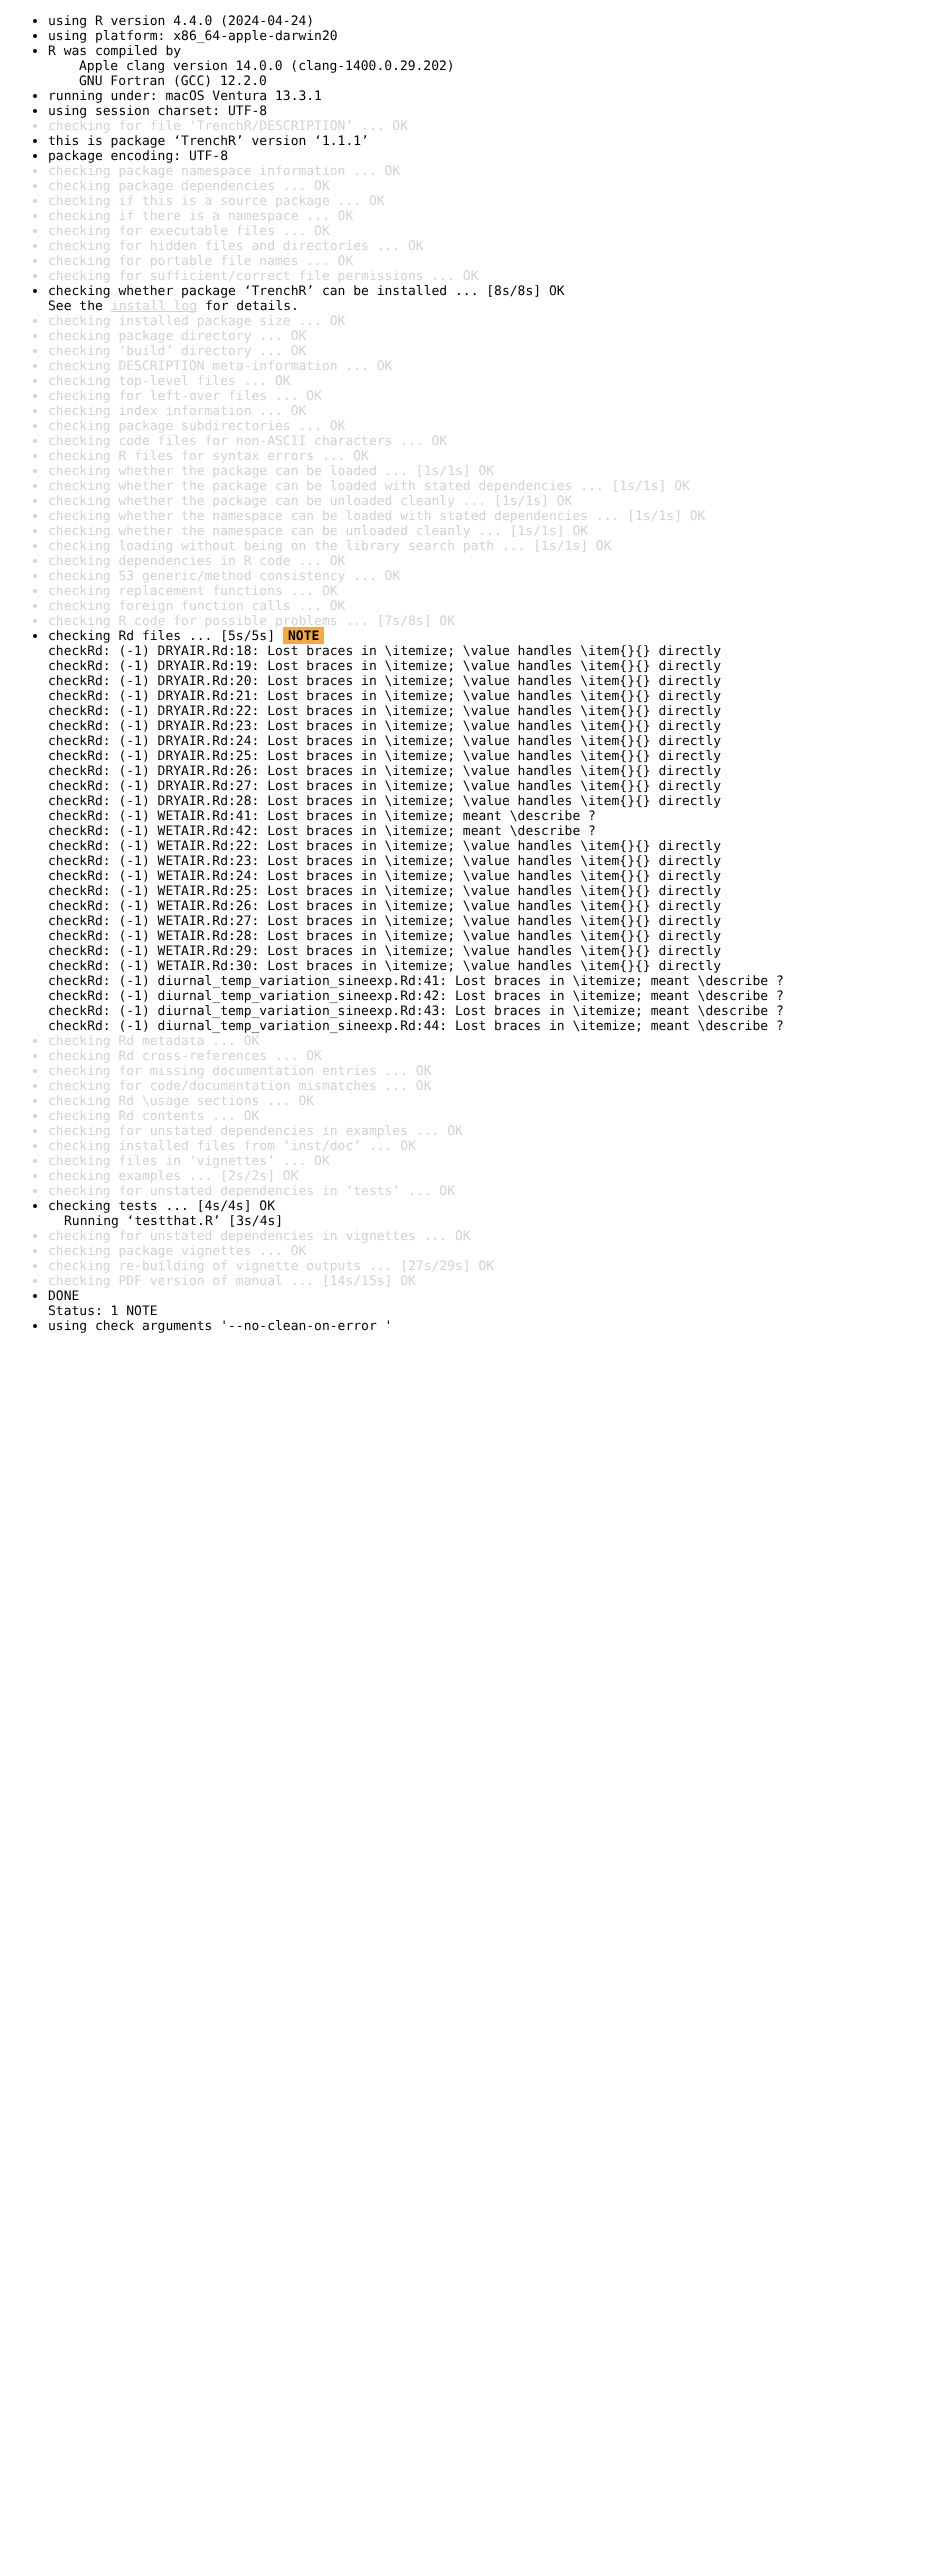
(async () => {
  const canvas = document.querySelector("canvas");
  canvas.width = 942;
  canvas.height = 2569;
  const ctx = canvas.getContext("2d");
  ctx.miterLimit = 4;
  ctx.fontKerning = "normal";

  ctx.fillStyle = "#ffffff";
  ctx.fillRect(0, 0, 942, 2569);
  ctx.fillStyle = "#000000";
  ctx.beginPath();
  ctx.arc(35, 21, 2, 0, Math.PI * 2);
  ctx.fill();
  ctx.beginPath();
  ctx.arc(35, 36, 2, 0, Math.PI * 2);
  ctx.fill();
  ctx.beginPath();
  ctx.arc(35, 51, 2, 0, Math.PI * 2);
  ctx.fill();
  ctx.beginPath();
  ctx.arc(35, 96, 2, 0, Math.PI * 2);
  ctx.fill();
  ctx.beginPath();
  ctx.arc(35, 111, 2, 0, Math.PI * 2);
  ctx.fill();
  ctx.fillStyle = "#d3d3d3";
  ctx.beginPath();
  ctx.arc(35, 126, 2, 0, Math.PI * 2);
  ctx.fill();
  ctx.fillStyle = "#000000";
  ctx.beginPath();
  ctx.arc(35, 141, 2, 0, Math.PI * 2);
  ctx.fill();
  ctx.beginPath();
  ctx.arc(35, 156, 2, 0, Math.PI * 2);
  ctx.fill();
  ctx.fillStyle = "#d3d3d3";
  ctx.beginPath();
  ctx.arc(35, 171, 2, 0, Math.PI * 2);
  ctx.fill();
  ctx.beginPath();
  ctx.arc(35, 186, 2, 0, Math.PI * 2);
  ctx.fill();
  ctx.beginPath();
  ctx.arc(35, 201, 2, 0, Math.PI * 2);
  ctx.fill();
  ctx.beginPath();
  ctx.arc(35, 216, 2, 0, Math.PI * 2);
  ctx.fill();
  ctx.beginPath();
  ctx.arc(35, 231, 2, 0, Math.PI * 2);
  ctx.fill();
  ctx.beginPath();
  ctx.arc(35, 246, 2, 0, Math.PI * 2);
  ctx.fill();
  ctx.beginPath();
  ctx.arc(35, 261, 2, 0, Math.PI * 2);
  ctx.fill();
  ctx.beginPath();
  ctx.arc(35, 276, 2, 0, Math.PI * 2);
  ctx.fill();
  ctx.fillStyle = "#000000";
  ctx.beginPath();
  ctx.arc(35, 291, 2, 0, Math.PI * 2);
  ctx.fill();
  ctx.fillStyle = "#d3d3d3";
  ctx.fillRect(111, 311, 86, 1);
  ctx.beginPath();
  ctx.arc(35, 321, 2, 0, Math.PI * 2);
  ctx.fill();
  ctx.beginPath();
  ctx.arc(35, 336, 2, 0, Math.PI * 2);
  ctx.fill();
  ctx.beginPath();
  ctx.arc(35, 351, 2, 0, Math.PI * 2);
  ctx.fill();
  ctx.beginPath();
  ctx.arc(35, 366, 2, 0, Math.PI * 2);
  ctx.fill();
  ctx.beginPath();
  ctx.arc(35, 381, 2, 0, Math.PI * 2);
  ctx.fill();
  ctx.beginPath();
  ctx.arc(35, 396, 2, 0, Math.PI * 2);
  ctx.fill();
  ctx.beginPath();
  ctx.arc(35, 411, 2, 0, Math.PI * 2);
  ctx.fill();
  ctx.beginPath();
  ctx.arc(35, 426, 2, 0, Math.PI * 2);
  ctx.fill();
  ctx.beginPath();
  ctx.arc(35, 441, 2, 0, Math.PI * 2);
  ctx.fill();
  ctx.beginPath();
  ctx.arc(35, 456, 2, 0, Math.PI * 2);
  ctx.fill();
  ctx.beginPath();
  ctx.arc(35, 471, 2, 0, Math.PI * 2);
  ctx.fill();
  ctx.beginPath();
  ctx.arc(35, 486, 2, 0, Math.PI * 2);
  ctx.fill();
  ctx.beginPath();
  ctx.arc(35, 501, 2, 0, Math.PI * 2);
  ctx.fill();
  ctx.beginPath();
  ctx.arc(35, 516, 2, 0, Math.PI * 2);
  ctx.fill();
  ctx.beginPath();
  ctx.arc(35, 531, 2, 0, Math.PI * 2);
  ctx.fill();
  ctx.beginPath();
  ctx.arc(35, 546, 2, 0, Math.PI * 2);
  ctx.fill();
  ctx.beginPath();
  ctx.arc(35, 561, 2, 0, Math.PI * 2);
  ctx.fill();
  ctx.beginPath();
  ctx.arc(35, 576, 2, 0, Math.PI * 2);
  ctx.fill();
  ctx.beginPath();
  ctx.arc(35, 591, 2, 0, Math.PI * 2);
  ctx.fill();
  ctx.beginPath();
  ctx.arc(35, 606, 2, 0, Math.PI * 2);
  ctx.fill();
  ctx.beginPath();
  ctx.arc(35, 621, 2, 0, Math.PI * 2);
  ctx.fill();
  ctx.fillStyle = "#000000";
  ctx.beginPath();
  ctx.arc(35, 636, 2, 0, Math.PI * 2);
  ctx.fill();
  ctx.fillStyle = "#d3d3d3";
  ctx.beginPath();
  ctx.arc(35, 1041, 2, 0, Math.PI * 2);
  ctx.fill();
  ctx.beginPath();
  ctx.arc(35, 1056, 2, 0, Math.PI * 2);
  ctx.fill();
  ctx.beginPath();
  ctx.arc(35, 1071, 2, 0, Math.PI * 2);
  ctx.fill();
  ctx.beginPath();
  ctx.arc(35, 1086, 2, 0, Math.PI * 2);
  ctx.fill();
  ctx.beginPath();
  ctx.arc(35, 1101, 2, 0, Math.PI * 2);
  ctx.fill();
  ctx.beginPath();
  ctx.arc(35, 1116, 2, 0, Math.PI * 2);
  ctx.fill();
  ctx.beginPath();
  ctx.arc(35, 1131, 2, 0, Math.PI * 2);
  ctx.fill();
  ctx.beginPath();
  ctx.arc(35, 1146, 2, 0, Math.PI * 2);
  ctx.fill();
  ctx.beginPath();
  ctx.arc(35, 1161, 2, 0, Math.PI * 2);
  ctx.fill();
  ctx.beginPath();
  ctx.arc(35, 1176, 2, 0, Math.PI * 2);
  ctx.fill();
  ctx.beginPath();
  ctx.arc(35, 1191, 2, 0, Math.PI * 2);
  ctx.fill();
  ctx.fillStyle = "#000000";
  ctx.beginPath();
  ctx.arc(35, 1206, 2, 0, Math.PI * 2);
  ctx.fill();
  ctx.fillStyle = "#d3d3d3";
  ctx.beginPath();
  ctx.arc(35, 1236, 2, 0, Math.PI * 2);
  ctx.fill();
  ctx.beginPath();
  ctx.arc(35, 1251, 2, 0, Math.PI * 2);
  ctx.fill();
  ctx.beginPath();
  ctx.arc(35, 1266, 2, 0, Math.PI * 2);
  ctx.fill();
  ctx.beginPath();
  ctx.arc(35, 1281, 2, 0, Math.PI * 2);
  ctx.fill();
  ctx.fillStyle = "#000000";
  ctx.beginPath();
  ctx.arc(35, 1296, 2, 0, Math.PI * 2);
  ctx.fill();
  ctx.beginPath();
  ctx.arc(35, 1326, 2, 0, Math.PI * 2);
  ctx.fill();
  ctx.font = "13px DejaVu Sans Mono";
  for (const [text, x, y] of [
    ["using R version 4.4.0 (2024-04-24)", 48, 25],
    ["using platform: x86_64-apple-darwin20", 48, 40],
    ["R was compiled by", 48, 55],
    ["Apple clang version 14.0.0 (clang-1400.0.29.202)", 79, 70],
    ["GNU Fortran (GCC) 12.2.0", 79, 85],
    ["running under: macOS Ventura 13.3.1", 48, 100],
    ["using session charset: UTF-8", 48, 115],
  ]) {
    ctx.fillText(text, x, y);
  }
  ctx.fillStyle = "#d3d3d3";
  ctx.fillText("checking for file ‘TrenchR/DESCRIPTION’ ... OK", 48, 130);
  ctx.fillStyle = "#000000";
  ctx.fillText("this is package ‘TrenchR’ version ‘1.1.1’", 48, 145);
  ctx.fillText("package encoding: UTF-8", 48, 160);
  ctx.fillStyle = "#d3d3d3";
  for (const [text, x, y] of [
    ["checking package namespace information ... OK", 48, 175],
    ["checking package dependencies ... OK", 48, 190],
    ["checking if this is a source package ... OK", 48, 205],
    ["checking if there is a namespace ... OK", 48, 220],
    ["checking for executable files ... OK", 48, 235],
    ["checking for hidden files and directories ... OK", 48, 250],
    ["checking for portable file names ... OK", 48, 265],
    ["checking for sufficient/correct file permissions ... OK", 48, 280],
  ]) {
    ctx.fillText(text, x, y);
  }
  ctx.fillStyle = "#000000";
  ctx.fillText("checking whether package ‘TrenchR’ can be installed ... [8s/8s] OK", 48, 295);
  ctx.fillText("See the", 48, 310);
  ctx.fillStyle = "#d3d3d3";
  ctx.fillText("install log", 111, 310);
  ctx.fillStyle = "#000000";
  ctx.fillText("for details.", 205, 310);
  ctx.fillStyle = "#d3d3d3";
  for (const [text, x, y] of [
    ["checking installed package size ... OK", 48, 325],
    ["checking package directory ... OK", 48, 340],
    ["checking ‘build’ directory ... OK", 48, 355],
    ["checking DESCRIPTION meta-information ... OK", 48, 370],
    ["checking top-level files ... OK", 48, 385],
    ["checking for left-over files ... OK", 48, 400],
    ["checking index information ... OK", 48, 415],
    ["checking package subdirectories ... OK", 48, 430],
    ["checking code files for non-ASCII characters ... OK", 48, 445],
    ["checking R files for syntax errors ... OK", 48, 460],
    ["checking whether the package can be loaded ... [1s/1s] OK", 48, 475],
    ["checking whether the package can be loaded with stated dependencies ... [1s/1s] OK", 48, 490],
    ["checking whether the package can be unloaded cleanly ... [1s/1s] OK", 48, 505],
    ["checking whether the namespace can be loaded with stated dependencies ... [1s/1s] OK", 48, 520],
    ["checking whether the namespace can be unloaded cleanly ... [1s/1s] OK", 48, 535],
    ["checking loading without being on the library search path ... [1s/1s] OK", 48, 550],
    ["checking dependencies in R code ... OK", 48, 565],
    ["checking S3 generic/method consistency ... OK", 48, 580],
    ["checking replacement functions ... OK", 48, 595],
    ["checking foreign function calls ... OK", 48, 610],
    ["checking R code for possible problems ... [7s/8s] OK", 48, 625],
  ]) {
    ctx.fillText(text, x, y);
  }
  ctx.fillStyle = "#000000";
  ctx.fillText("checking Rd files ... [5s/5s]", 48, 640);
  ctx.fillStyle = "#f7a845";
  ctx.fillRect(283, 627, 41, 17);
  ctx.font = "bold 13px DejaVu Sans Mono";
  ctx.fillStyle = "#000000";
  ctx.fillText("NOTE", 288, 640);
  ctx.font = "13px DejaVu Sans Mono";
  for (const [text, x, y] of [
    ["checkRd: (-1) DRYAIR.Rd:18: Lost braces in \\itemize; \\value handles \\item{}{} directly", 48, 655],
    ["checkRd: (-1) DRYAIR.Rd:19: Lost braces in \\itemize; \\value handles \\item{}{} directly", 48, 670],
    ["checkRd: (-1) DRYAIR.Rd:20: Lost braces in \\itemize; \\value handles \\item{}{} directly", 48, 685],
    ["checkRd: (-1) DRYAIR.Rd:21: Lost braces in \\itemize; \\value handles \\item{}{} directly", 48, 700],
    ["checkRd: (-1) DRYAIR.Rd:22: Lost braces in \\itemize; \\value handles \\item{}{} directly", 48, 715],
    ["checkRd: (-1) DRYAIR.Rd:23: Lost braces in \\itemize; \\value handles \\item{}{} directly", 48, 730],
    ["checkRd: (-1) DRYAIR.Rd:24: Lost braces in \\itemize; \\value handles \\item{}{} directly", 48, 745],
    ["checkRd: (-1) DRYAIR.Rd:25: Lost braces in \\itemize; \\value handles \\item{}{} directly", 48, 760],
    ["checkRd: (-1) DRYAIR.Rd:26: Lost braces in \\itemize; \\value handles \\item{}{} directly", 48, 775],
    ["checkRd: (-1) DRYAIR.Rd:27: Lost braces in \\itemize; \\value handles \\item{}{} directly", 48, 790],
    ["checkRd: (-1) DRYAIR.Rd:28: Lost braces in \\itemize; \\value handles \\item{}{} directly", 48, 805],
    ["checkRd: (-1) WETAIR.Rd:41: Lost braces in \\itemize; meant \\describe ?", 48, 820],
    ["checkRd: (-1) WETAIR.Rd:42: Lost braces in \\itemize; meant \\describe ?", 48, 835],
    ["checkRd: (-1) WETAIR.Rd:22: Lost braces in \\itemize; \\value handles \\item{}{} directly", 48, 850],
    ["checkRd: (-1) WETAIR.Rd:23: Lost braces in \\itemize; \\value handles \\item{}{} directly", 48, 865],
    ["checkRd: (-1) WETAIR.Rd:24: Lost braces in \\itemize; \\value handles \\item{}{} directly", 48, 880],
    ["checkRd: (-1) WETAIR.Rd:25: Lost braces in \\itemize; \\value handles \\item{}{} directly", 48, 895],
    ["checkRd: (-1) WETAIR.Rd:26: Lost braces in \\itemize; \\value handles \\item{}{} directly", 48, 910],
    ["checkRd: (-1) WETAIR.Rd:27: Lost braces in \\itemize; \\value handles \\item{}{} directly", 48, 925],
    ["checkRd: (-1) WETAIR.Rd:28: Lost braces in \\itemize; \\value handles \\item{}{} directly", 48, 940],
    ["checkRd: (-1) WETAIR.Rd:29: Lost braces in \\itemize; \\value handles \\item{}{} directly", 48, 955],
    ["checkRd: (-1) WETAIR.Rd:30: Lost braces in \\itemize; \\value handles \\item{}{} directly", 48, 970],
    ["checkRd: (-1) diurnal_temp_variation_sineexp.Rd:41: Lost braces in \\itemize; meant \\describe ?", 48, 985],
    ["checkRd: (-1) diurnal_temp_variation_sineexp.Rd:42: Lost braces in \\itemize; meant \\describe ?", 48, 1000],
    ["checkRd: (-1) diurnal_temp_variation_sineexp.Rd:43: Lost braces in \\itemize; meant \\describe ?", 48, 1015],
    ["checkRd: (-1) diurnal_temp_variation_sineexp.Rd:44: Lost braces in \\itemize; meant \\describe ?", 48, 1030],
  ]) {
    ctx.fillText(text, x, y);
  }
  ctx.fillStyle = "#d3d3d3";
  for (const [text, x, y] of [
    ["checking Rd metadata ... OK", 48, 1045],
    ["checking Rd cross-references ... OK", 48, 1060],
    ["checking for missing documentation entries ... OK", 48, 1075],
    ["checking for code/documentation mismatches ... OK", 48, 1090],
    ["checking Rd \\usage sections ... OK", 48, 1105],
    ["checking Rd contents ... OK", 48, 1120],
    ["checking for unstated dependencies in examples ... OK", 48, 1135],
    ["checking installed files from ‘inst/doc’ ... OK", 48, 1150],
    ["checking files in ‘vignettes’ ... OK", 48, 1165],
    ["checking examples ... [2s/2s] OK", 48, 1180],
    ["checking for unstated dependencies in ‘tests’ ... OK", 48, 1195],
  ]) {
    ctx.fillText(text, x, y);
  }
  ctx.fillStyle = "#000000";
  ctx.fillText("checking tests ... [4s/4s] OK", 48, 1210);
  ctx.fillText("Running ‘testthat.R’ [3s/4s]", 64, 1225);
  ctx.fillStyle = "#d3d3d3";
  for (const [text, x, y] of [
    ["checking for unstated dependencies in vignettes ... OK", 48, 1240],
    ["checking package vignettes ... OK", 48, 1255],
    ["checking re-building of vignette outputs ... [27s/29s] OK", 48, 1270],
    ["checking PDF version of manual ... [14s/15s] OK", 48, 1285],
  ]) {
    ctx.fillText(text, x, y);
  }
  ctx.fillStyle = "#000000";
  for (const [text, x, y] of [
    ["DONE", 48, 1300],
    ["Status: 1 NOTE", 48, 1315],
    ["using check arguments '--no-clean-on-error '", 48, 1330],
  ]) {
    ctx.fillText(text, x, y);
  }
})();
